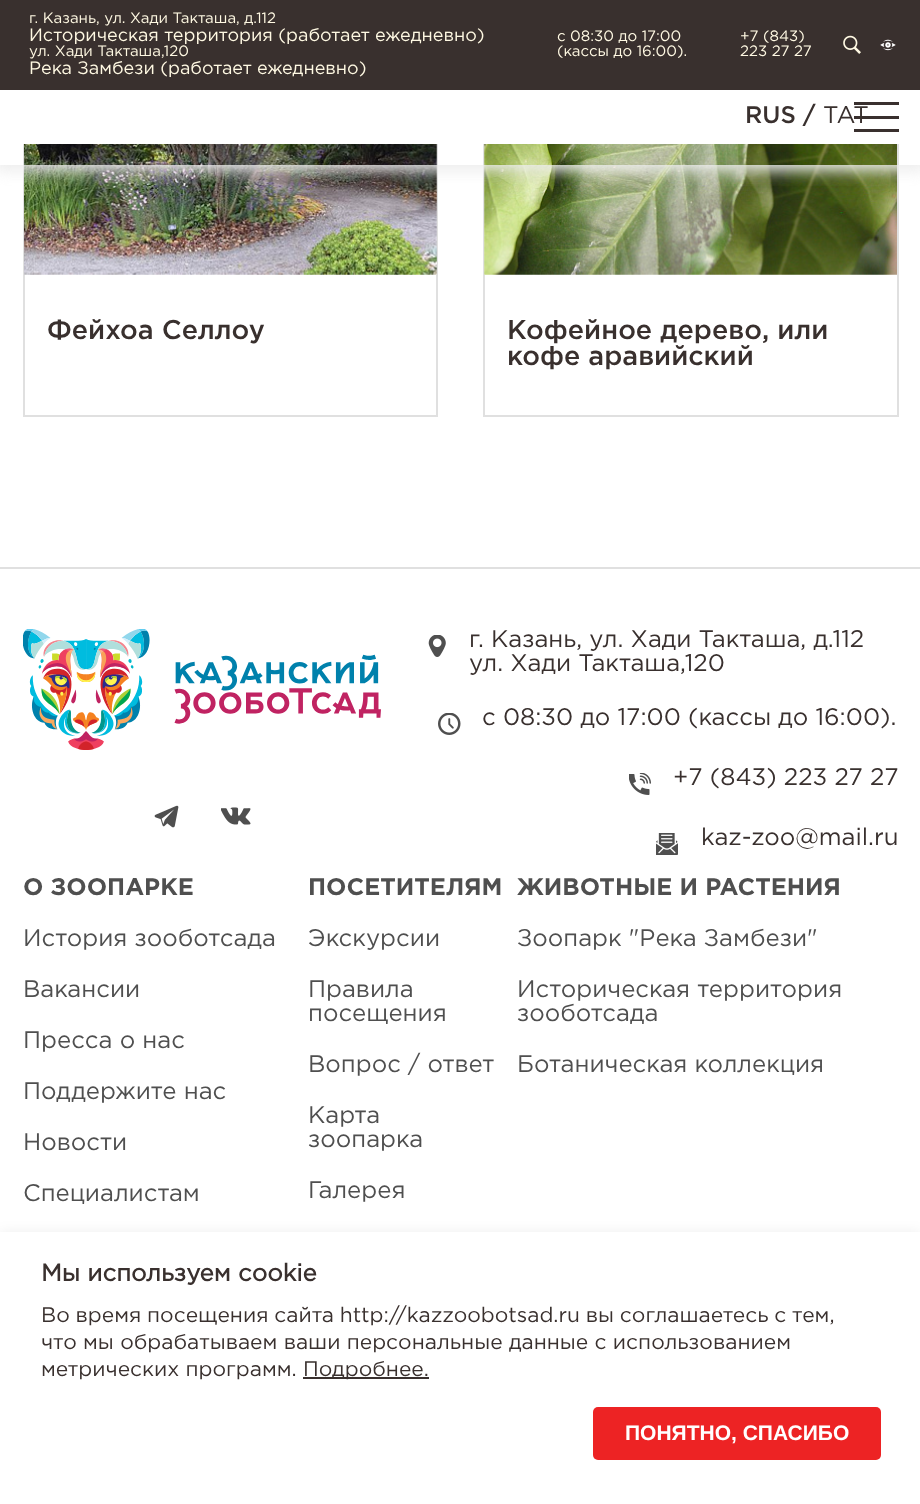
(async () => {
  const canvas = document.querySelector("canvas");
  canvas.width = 920;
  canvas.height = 1504;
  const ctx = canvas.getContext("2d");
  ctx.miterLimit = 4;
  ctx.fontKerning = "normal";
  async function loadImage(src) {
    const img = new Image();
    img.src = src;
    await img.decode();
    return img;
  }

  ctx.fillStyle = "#ffffff";
  ctx.fillRect(0, 0, 920, 1504);
  ctx.strokeStyle = "#e0e0e0";
  ctx.lineWidth = 2;
  ctx.strokeRect(24, -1, 413, 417);
  ctx.drawImage(await loadImage("img/3.png"), 24, 144, 413, 131);
  ctx.drawImage(await loadImage("img/4.png"), 24, 144, 413, 131);
  ctx.strokeRect(484, -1, 414, 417);
  ctx.drawImage(await loadImage("img/5.png"), 484, 144, 413, 131);
  ctx.drawImage(await loadImage("img/6.png"), 484, 144, 413, 131);
  ctx.save();
  ctx.beginPath();
  ctx.rect(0, 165, 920, 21);
  ctx.clip();
  ctx.fillStyle = "#ededed";
  ctx.filter = "blur(7.5px)";
  ctx.beginPath();
  ctx.rect(-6, -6, 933, 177);
  ctx.fill();
  ctx.filter = "none";
  ctx.restore();
  ctx.fillStyle = "#39302e";
  ctx.fillRect(0, 0, 920, 90);
  ctx.drawImage(await loadImage("img/1.png"), 843, 35, 18, 19);
  ctx.drawImage(await loadImage("img/2.png"), 880, 39, 16, 12);
  for (const [x, y, w, h, color] of [
    [23, 90, 876, 54, "#ffffff"],
    [854, 102, 45, 3, "#39302e"],
    [854, 116, 45, 3, "#39302e"],
    [854, 129, 45, 3, "#39302e"],
    [0, 567, 920, 2, "#e0e0e0"],
  ]) {
    ctx.fillStyle = color;
    ctx.fillRect(x, y, w, h);
  }
  ctx.drawImage(await loadImage("img/7.png"), 23, 629, 358, 121);
  ctx.drawImage(await loadImage("img/8.png"), 154, 805, 25, 23);
  ctx.drawImage(await loadImage("img/9.png"), 221, 807, 30, 18);
  ctx.drawImage(await loadImage("img/10.png"), 428, 635, 18, 22);
  ctx.drawImage(await loadImage("img/11.png"), 438, 713, 23, 22);
  ctx.drawImage(await loadImage("img/12.png"), 629, 773, 22, 22);
  ctx.drawImage(await loadImage("img/13.png"), 656, 833, 22, 22);
  ctx.fillStyle = "rgba(0, 0, 0, 0.1)";
  ctx.filter = "blur(7.5px)";
  ctx.beginPath();
  ctx.rect(0, 1235, 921, 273);
  ctx.fill();
  ctx.filter = "none";
  ctx.fillStyle = "#ffffff";
  ctx.fillRect(0, 1232, 920, 272);
  ctx.fillStyle = "#39302e";
  ctx.fillRect(303, 1377, 126, 2);
  ctx.fillStyle = "#ed2324";
  ctx.beginPath();
  ctx.roundRect(593, 1407, 288, 53, 5);
  ctx.fill();
  ctx.font = "15px Gotham";
  ctx.fillStyle = "#fff9e3";
  ctx.fillText("г. Казань, ул. Хади Такташа, д.112", 29, 23);
  ctx.font = "18px Gotham";
  ctx.fillText("Историческая территория (работает ежедневно)", 29, 41);
  ctx.font = "15px Gotham";
  ctx.fillText("ул. Хади Такташа,120", 29, 56);
  ctx.font = "18px Gotham";
  ctx.fillText("Река Замбези (работает ежедневно)", 29, 74);
  ctx.font = "15px Gotham";
  for (const [text, x, y] of [
    ["с 08:30 до 17:00", 557, 41],
    ["(кассы до 16:00).", 557, 56],
    ["+7 (843)", 740, 41],
    ["223 27 27", 740, 56],
  ]) {
    ctx.fillText(text, x, y);
  }
  ctx.font = "500 24px Gotham";
  ctx.fillStyle = "#39302e";
  ctx.fillText("RUS /", 745, 123);
  ctx.font = "24px Gotham";
  ctx.fillText("TAT", 823, 123);
  ctx.font = "500 27px Gotham";
  for (const [text, x, y] of [
    ["Фейхоа Селлоу", 47, 339],
    ["Кофейное дерево, или", 507, 339],
    ["кофе аравийский", 507, 365],
  ]) {
    ctx.fillText(text, x, y);
  }
  ctx.font = "24px Gotham";
  for (const [text, x, y] of [
    ["г. Казань, ул. Хади Такташа, д.112", 469, 647],
    ["ул. Хади Такташа,120", 469, 671],
    ["с 08:30 до 17:00 (кассы до 16:00).", 482, 725],
    ["+7 (843) 223 27 27", 673, 785],
    ["kaz-zoo@mail.ru", 701, 845],
  ]) {
    ctx.fillText(text, x, y);
  }
  ctx.font = "bold 24px Gotham";
  ctx.fillStyle = "#4f4f4f";
  ctx.fillText("О ЗООПАРКЕ", 23, 895);
  ctx.font = "24px Gotham";
  for (const [text, x, y] of [
    ["История зооботсада", 23, 946],
    ["Вакансии", 23, 997],
    ["Пресса о нас", 23, 1048],
    ["Поддержите нас", 23, 1099],
    ["Новости", 23, 1150],
    ["Специалистам", 23, 1201],
  ]) {
    ctx.fillText(text, x, y);
  }
  ctx.font = "bold 24px Gotham";
  ctx.fillText("ПОСЕТИТЕЛЯМ", 308, 895);
  ctx.font = "24px Gotham";
  for (const [text, x, y] of [
    ["Экскурсии", 308, 946],
    ["Правила", 308, 997],
    ["посещения", 308, 1021],
    ["Вопрос / ответ", 308, 1072],
    ["Карта", 308, 1123],
    ["зоопарка", 308, 1147],
    ["Галерея", 308, 1198],
  ]) {
    ctx.fillText(text, x, y);
  }
  ctx.font = "bold 24px Gotham";
  ctx.fillText("ЖИВОТНЫЕ И РАСТЕНИЯ", 517, 895);
  ctx.font = "24px Gotham";
  for (const [text, x, y] of [
    ["Зоопарк \"Река Замбези\"", 517, 946],
    ["Историческая территория", 517, 997],
    ["зооботсада", 517, 1021],
    ["Ботаническая коллекция", 517, 1072],
  ]) {
    ctx.fillText(text, x, y);
  }
  ctx.font = "bold 24px 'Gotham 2'";
  ctx.fillStyle = "#39302e";
  ctx.fillText("Мы используем сookie", 41, 1281);
  ctx.wordSpacing = "-0.5px";
  ctx.font = "21px Gotham";
  ctx.fillText("Во время посещения сайта http://kazzoobotsad.ru вы соглашаетесь с тем,", 41, 1322);
  ctx.wordSpacing = "0px";
  for (const [text, x, y] of [
    ["что мы обрабатываем ваши персональные данные с использованием", 41, 1349],
    ["метрических программ.", 41, 1376],
    ["Подробнее.", 303, 1376],
  ]) {
    ctx.fillText(text, x, y);
  }
  ctx.font = "bold 21px Liberation Sans";
  ctx.fillStyle = "#ffffff";
  ctx.fillText("ПОНЯТНО, СПАСИБО", 625, 1440);
})();
